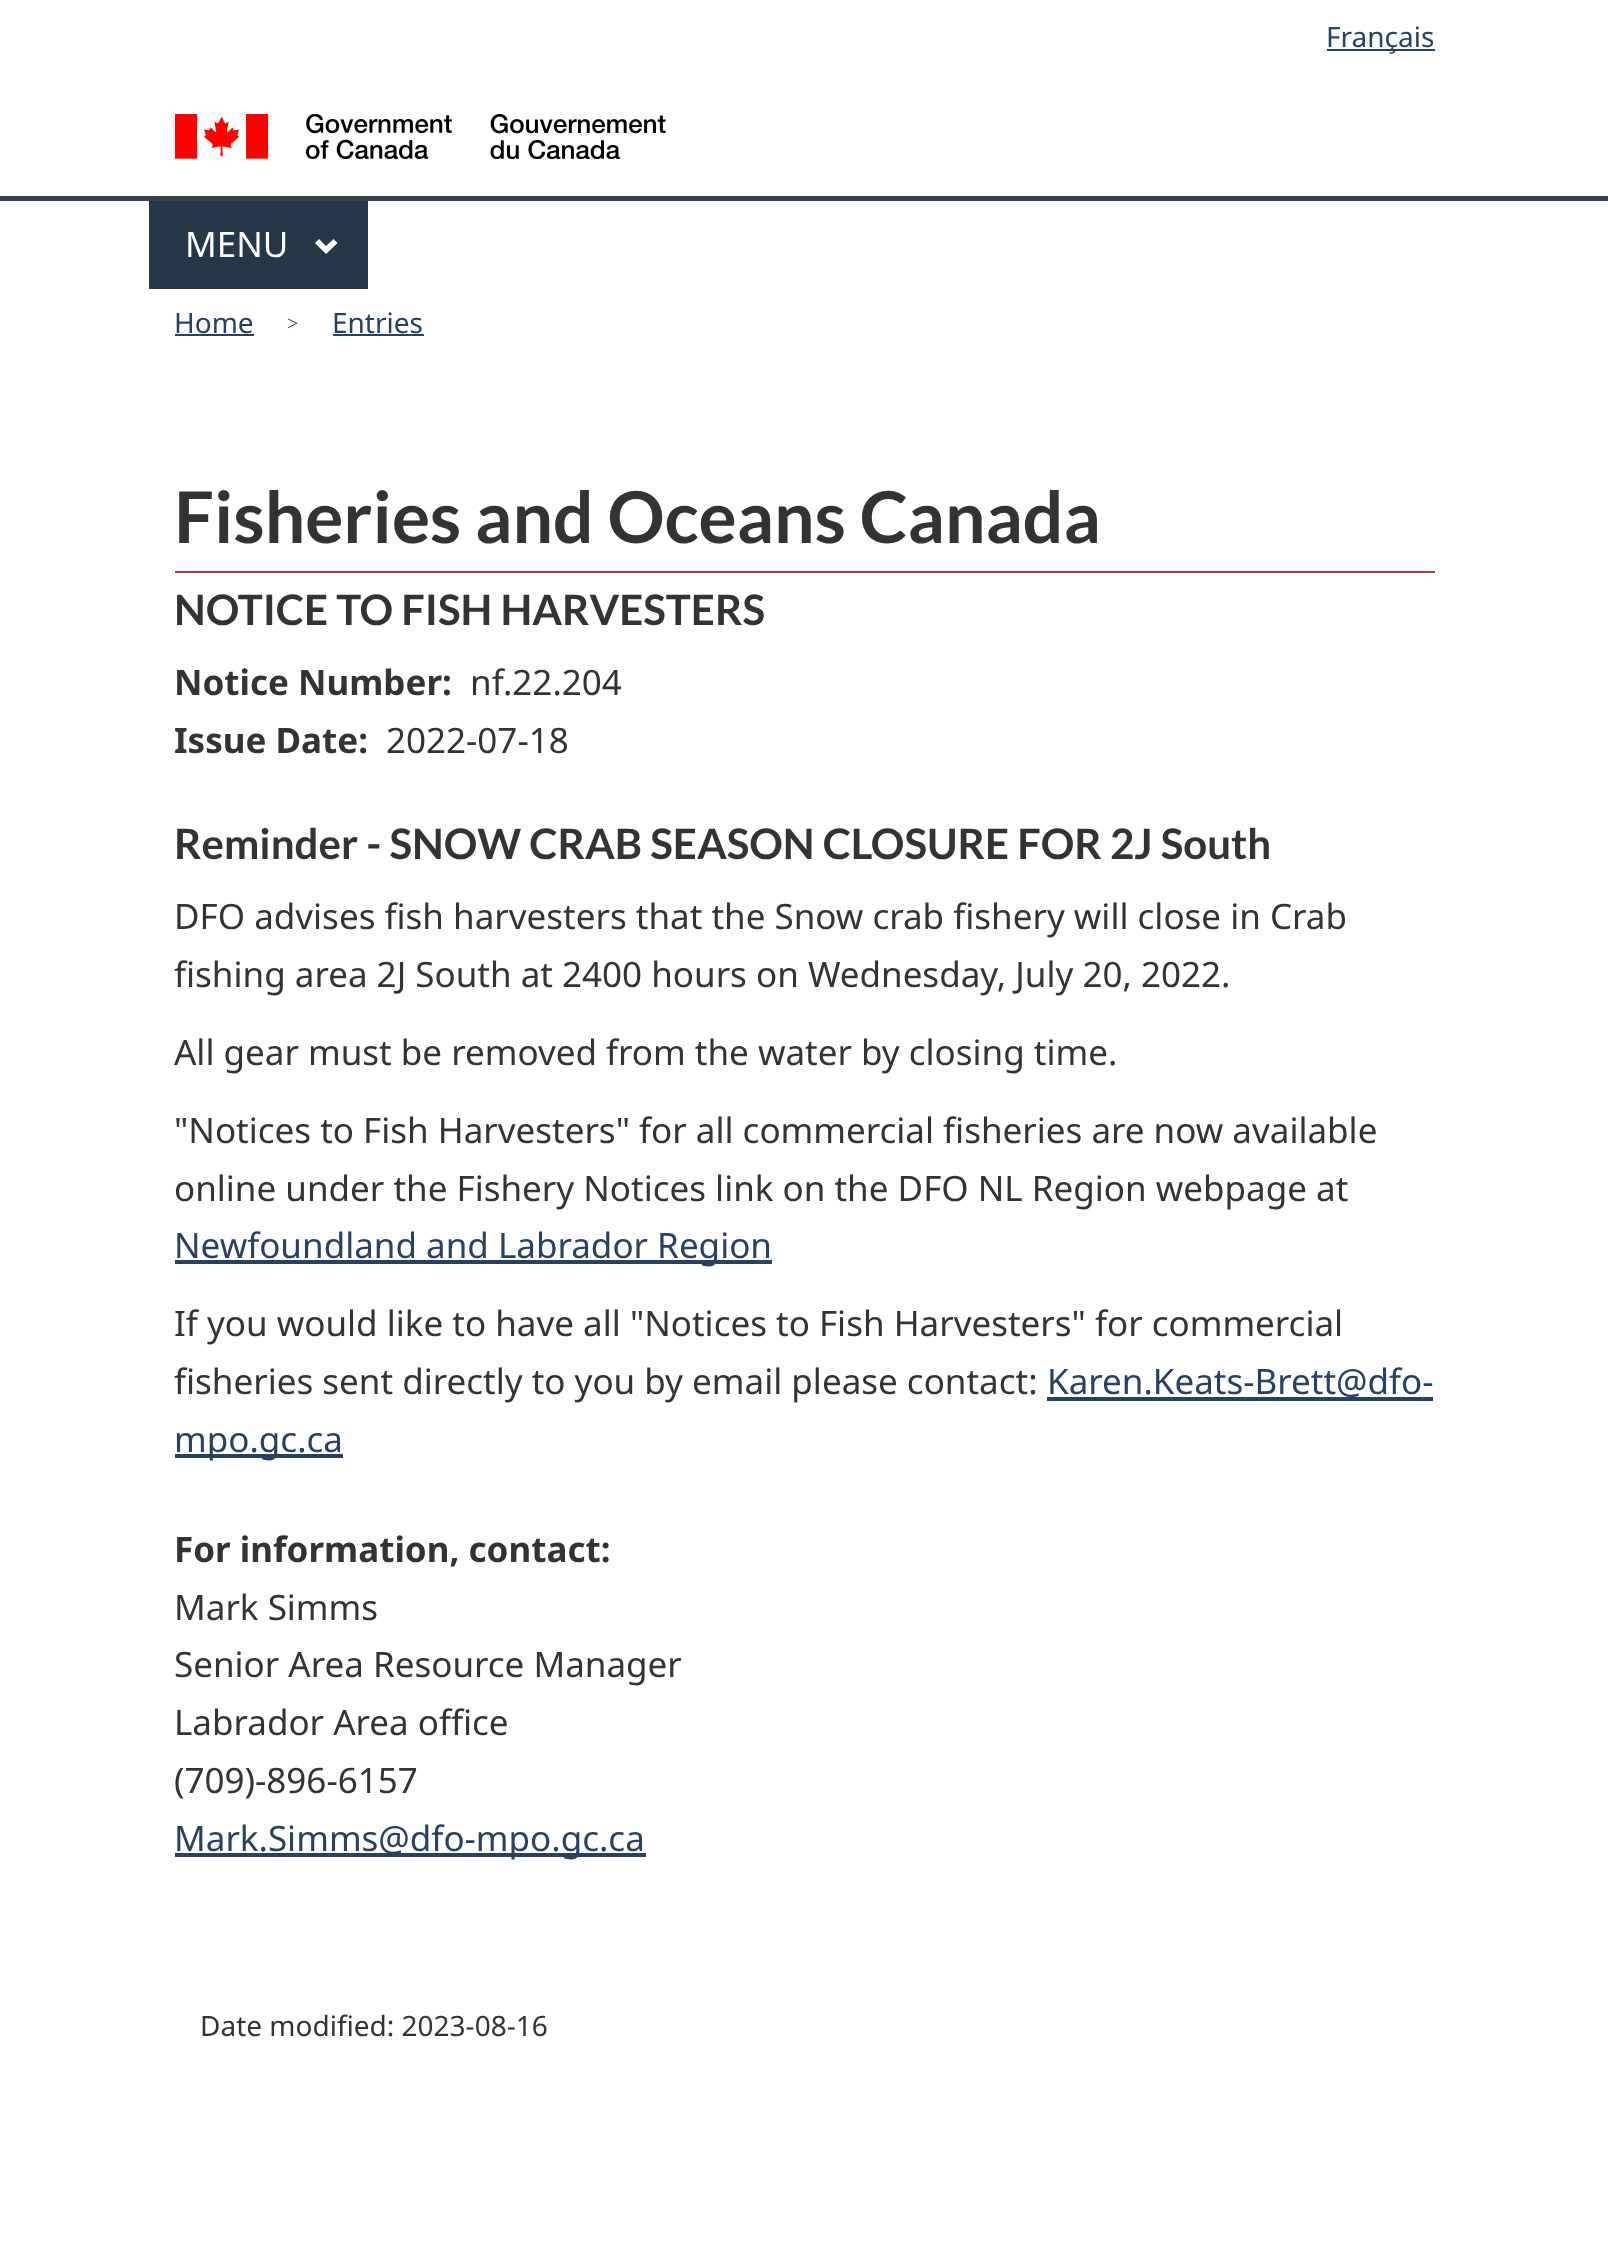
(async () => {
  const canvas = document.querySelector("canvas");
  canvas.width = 1608;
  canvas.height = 2244;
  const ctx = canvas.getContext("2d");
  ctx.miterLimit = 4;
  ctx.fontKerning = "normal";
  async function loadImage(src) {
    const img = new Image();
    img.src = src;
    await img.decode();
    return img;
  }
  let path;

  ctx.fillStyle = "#ffffff";
  ctx.fillRect(0, 0, 1608, 2244);
  ctx.fillStyle = "#284162";
  ctx.fillRect(1327, 49, 108, 2);
  ctx.drawImage(await loadImage("img/1.png"), 175, 114, 491, 45);
  ctx.fillStyle = "#38414d";
  ctx.fillRect(0, 196, 1608, 5);
  ctx.fillStyle = "#26374a";
  ctx.fillRect(149, 201, 219, 88);
  ctx.fillStyle = "#ffffff";
  path = new Path2D("M337.5 243L326 254L315 243L319 239L326 246L333.5 239Z");
  ctx.fill(path);
  for (const [x, y, w, h, color] of [
    [175, 334, 79, 2, "#284162"],
    [333, 334, 91, 2, "#284162"],
    [175, 571, 1260, 2, "#af3c43"],
    [175, 1260, 597, 4, "#284162"],
    [1047, 1397, 386, 4, "#284162"],
    [175, 1454, 168, 4, "#284162"],
    [175, 1853, 471, 4, "#284162"],
  ]) {
    ctx.fillStyle = color;
    ctx.fillRect(x, y, w, h);
  }
  ctx.font = "28px Noto Sans";
  ctx.fillText("Français", 1326, 47);
  ctx.font = "35px Noto Sans";
  ctx.fillStyle = "#ffffff";
  ctx.fillText("MENU", 185, 257);
  ctx.font = "28px Noto Sans";
  ctx.fillStyle = "#284162";
  ctx.fillText("Home", 174, 333);
  ctx.font = "20px Liberation Serif";
  ctx.fillStyle = "#333333";
  ctx.fillText(">", 287, 330);
  ctx.font = "28px Noto Sans";
  ctx.fillStyle = "#284162";
  ctx.fillText("Entries", 332, 333);
  ctx.font = "bold 71.4px Lato";
  ctx.fillStyle = "#333333";
  ctx.fillText("Fisheries and Oceans Canada", 174, 543);
  ctx.font = "bold 42px Lato";
  ctx.fillText("NOTICE TO FISH HARVESTERS", 174, 625);
  ctx.font = "bold 35px Noto Sans";
  ctx.fillText("Notice Number:", 174, 695);
  ctx.font = "35px Noto Sans";
  ctx.fillText("nf.22.204", 470, 695);
  ctx.font = "bold 35px Noto Sans";
  ctx.fillText("Issue Date:", 174, 753);
  ctx.font = "35px Noto Sans";
  ctx.fillText("2022-07-18", 386, 753);
  ctx.font = "bold 42px Lato";
  ctx.fillText("Reminder - SNOW CRAB SEASON CLOSURE FOR 2J South", 174, 859);
  ctx.font = "35px Noto Sans";
  for (const [text, x, y] of [
    ["DFO advises fish harvesters that the Snow crab fishery will close in Crab", 174, 929],
    ["fishing area 2J South at 2400 hours on Wednesday, July 20, 2022.", 174, 987],
    ["All gear must be removed from the water by closing time.", 174, 1065],
    ["\"Notices to Fish Harvesters\" for all commercial fisheries are now available", 174, 1143],
    ["online under the Fishery Notices link on the DFO NL Region webpage at", 174, 1201],
  ]) {
    ctx.fillText(text, x, y);
  }
  ctx.fillStyle = "#284162";
  ctx.fillText("Newfoundland and Labrador Region", 174, 1258);
  ctx.fillStyle = "#333333";
  ctx.fillText("If you would like to have all \"Notices to Fish Harvesters\" for commercial", 174, 1336);
  ctx.fillText("fisheries sent directly to you by email please contact:", 174, 1394);
  ctx.fillStyle = "#284162";
  ctx.fillText("Karen.Keats-Brett@dfo-", 1047, 1394);
  ctx.fillText("mpo.gc.ca", 174, 1452);
  ctx.font = "bold 35px Noto Sans";
  ctx.fillStyle = "#333333";
  ctx.fillText("For information, contact:", 174, 1562);
  ctx.font = "35px Noto Sans";
  for (const [text, x, y] of [
    ["Mark Simms", 174, 1620],
    ["Senior Area Resource Manager", 174, 1677],
    ["Labrador Area office", 174, 1735],
    ["(709)-896-6157", 174, 1793],
  ]) {
    ctx.fillText(text, x, y);
  }
  ctx.fillStyle = "#284162";
  ctx.fillText("Mark.Simms@dfo-mpo.gc.ca", 174, 1851);
  ctx.font = "28px Noto Sans";
  ctx.fillStyle = "#333333";
  ctx.fillText("Date modified: 2023-08-16", 200, 2036);
})();
